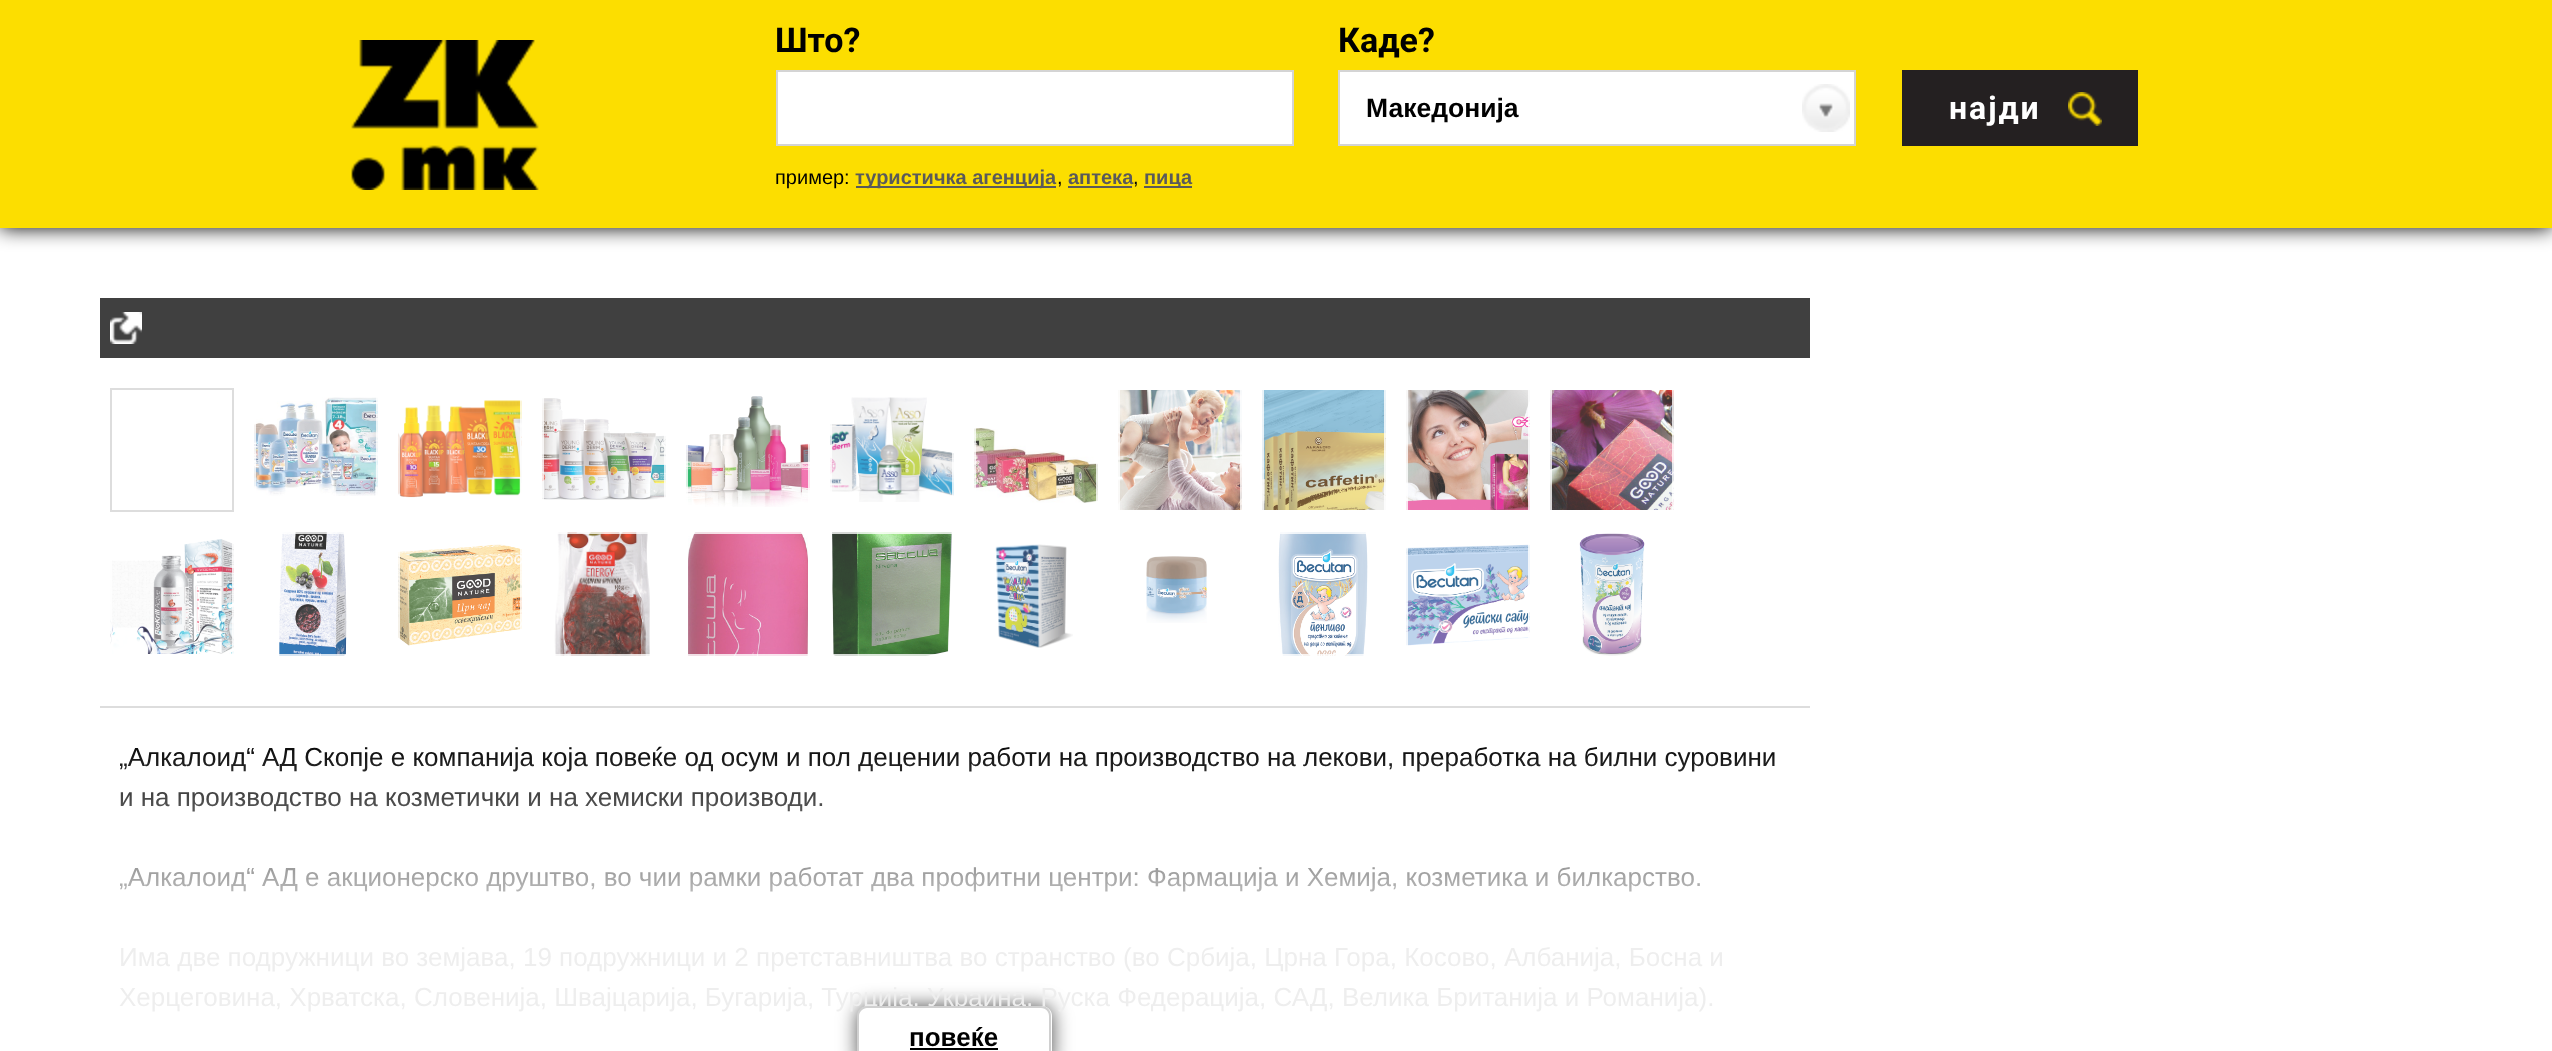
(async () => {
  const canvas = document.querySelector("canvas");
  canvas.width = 2552;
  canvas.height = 1051;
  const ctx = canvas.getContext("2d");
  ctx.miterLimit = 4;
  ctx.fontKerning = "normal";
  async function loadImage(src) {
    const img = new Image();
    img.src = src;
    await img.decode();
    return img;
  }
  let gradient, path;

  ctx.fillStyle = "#ffffff";
  ctx.fillRect(0, 0, 2552, 1051);
  ctx.fillStyle = "#000000";
  ctx.filter = "blur(10px)";
  ctx.beginPath();
  ctx.rect(0, 0, 2552, 228);
  ctx.fill();
  ctx.filter = "none";
  ctx.fillStyle = "#fcde00";
  ctx.fillRect(0, 0, 2552, 228);
  ctx.drawImage(await loadImage("img/1.png"), 351, 40, 188, 150);
  ctx.fillStyle = "#ffffff";
  ctx.beginPath();
  ctx.rect(777, 71, 516, 74);
  ctx.fill();
  ctx.strokeStyle = "#d4d4d4";
  ctx.lineWidth = 2;
  ctx.stroke();
  for (const [x, y, w, h, color] of [
    [856, 186, 200, 2, "#5a5a5a"],
    [1068, 186, 64, 2, "#5a5a5a"],
    [1144, 186, 48, 2, "#5a5a5a"],
    [1340, 72, 514, 72, "#ffffff"],
  ]) {
    ctx.fillStyle = color;
    ctx.fillRect(x, y, w, h);
  }
  ctx.drawImage(await loadImage("img/2.png"), 1802, 84, 48, 48);
  ctx.strokeRect(1339, 71, 516, 74);
  ctx.fillStyle = "#242021";
  ctx.fillRect(1902, 70, 236, 76);
  ctx.drawImage(await loadImage("img/3.png"), 2068, 92, 34, 34);
  ctx.fillStyle = "#404040";
  ctx.fillRect(100, 298, 1710, 60);
  ctx.drawImage(await loadImage("img/4.png"), 110, 312, 32, 32);
  ctx.strokeStyle = "#dddddd";
  ctx.strokeRect(111, 389, 122, 122);
  ctx.drawImage(await loadImage("img/5.png"), 254, 397, 124, 99);
  ctx.strokeStyle = "rgba(255, 255, 255, 0.8)";
  ctx.strokeRect(255, 389, 122, 122);
  ctx.drawImage(await loadImage("img/6.png"), 398, 400, 124, 98);
  ctx.strokeRect(399, 389, 122, 122);
  ctx.drawImage(await loadImage("img/7.png"), 542, 398, 124, 102);
  ctx.strokeRect(543, 389, 122, 122);
  ctx.drawImage(await loadImage("img/8.png"), 686, 396, 124, 111);
  ctx.strokeRect(687, 389, 122, 122);
  ctx.drawImage(await loadImage("img/9.png"), 830, 397, 124, 105);
  ctx.strokeRect(831, 389, 122, 122);
  ctx.drawImage(await loadImage("img/10.png"), 974, 428, 124, 75);
  ctx.strokeRect(975, 389, 122, 122);
  ctx.drawImage(await loadImage("img/11.png"), 1118, 390, 124, 120);
  ctx.strokeRect(1119, 389, 122, 122);
  ctx.drawImage(await loadImage("img/12.png"), 1262, 390, 124, 120);
  ctx.strokeRect(1263, 389, 122, 122);
  ctx.drawImage(await loadImage("img/13.png"), 1406, 390, 124, 120);
  ctx.strokeRect(1407, 389, 122, 122);
  ctx.drawImage(await loadImage("img/14.png"), 1550, 390, 124, 120);
  ctx.strokeRect(1551, 389, 122, 122);
  ctx.drawImage(await loadImage("img/15.png"), 110, 539, 124, 115);
  ctx.strokeRect(111, 533, 122, 122);
  ctx.drawImage(await loadImage("img/16.png"), 279, 532, 68, 124);
  ctx.strokeRect(255, 533, 122, 122);
  ctx.drawImage(await loadImage("img/17.png"), 398, 544, 124, 102);
  ctx.strokeRect(399, 533, 122, 122);
  ctx.drawImage(await loadImage("img/18.png"), 554, 532, 96, 124);
  ctx.strokeRect(543, 533, 122, 122);
  ctx.drawImage(await loadImage("img/19.png"), 688, 532, 120, 124);
  ctx.strokeRect(687, 533, 122, 122);
  ctx.drawImage(await loadImage("img/20.png"), 832, 532, 120, 124);
  ctx.strokeRect(831, 533, 122, 122);
  ctx.drawImage(await loadImage("img/21.png"), 995, 544, 78, 104);
  ctx.drawImage(await loadImage("img/22.png"), 1146, 556, 61, 67);
  ctx.drawImage(await loadImage("img/23.png"), 1278, 532, 90, 124);
  ctx.strokeRect(1263, 533, 122, 122);
  ctx.drawImage(await loadImage("img/24.png"), 1406, 544, 124, 102);
  ctx.strokeRect(1407, 533, 122, 122);
  ctx.drawImage(await loadImage("img/25.png"), 1579, 532, 66, 124);
  ctx.strokeRect(1551, 533, 122, 122);
  ctx.fillStyle = "#dddddd";
  ctx.fillRect(100, 706, 1710, 2);
  ctx.fillStyle = "rgba(0, 0, 0, 0.7)";
  ctx.filter = "blur(10px)";
  ctx.beginPath();
  ctx.roundRect(858, 1006, 194, 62, 10);
  ctx.fill();
  ctx.filter = "none";
  ctx.font = "bold 34px Roboto";
  ctx.fillStyle = "#000000";
  ctx.fillText("Што?", 775, 52);
  ctx.font = "20px Liberation Sans";
  ctx.fillText("пример:", 775, 184);
  ctx.font = "bold 20px Liberation Sans";
  ctx.fillStyle = "#5a5a5a";
  ctx.fillText("туристичка агенција", 855, 184);
  ctx.font = "20px Liberation Sans";
  ctx.fillStyle = "#000000";
  ctx.fillText(",", 1057, 184);
  ctx.font = "bold 20px Liberation Sans";
  ctx.fillStyle = "#5a5a5a";
  ctx.fillText("аптека", 1068, 184);
  ctx.font = "20px Liberation Sans";
  ctx.fillStyle = "#000000";
  ctx.fillText(",", 1133, 184);
  ctx.font = "bold 20px Liberation Sans";
  ctx.fillStyle = "#5a5a5a";
  ctx.fillText("пица", 1144, 184);
  ctx.font = "bold 34px Roboto";
  ctx.fillStyle = "#000000";
  ctx.fillText("Каде?", 1338, 52);
  ctx.font = "bold 26.5px Liberation Sans";
  ctx.fillText("Македонија", 1366, 117);
  ctx.letterSpacing = "2px";
  ctx.font = "bold 32px Roboto";
  ctx.fillStyle = "#ffffff";
  ctx.fillText("најди", 1949, 119);
  ctx.letterSpacing = "0px";
  ctx.font = "26px Liberation Sans";
  gradient = ctx.createLinearGradient(954, 738, 954, 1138);
  gradient.addColorStop(0, "#000000");
  gradient.addColorStop(0.5, "#eeeeee");
  ctx.fillStyle = gradient;
  for (const [text, x, y] of [
    ["„Алкалоид“ AД Скопје е компанија која повеќе од осум и пол децении работи на производство на лекови, преработка на билни суровини", 119, 766],
    ["и на производство на козметички и на хемиски производи.", 119, 806],
    ["„Алкалоид“ АД е акционерско друштво, во чии рамки работат два профитни центри: Фармација и Хемија, козметика и билкарство.", 119, 886],
    ["Има две подружници во земјава, 19 подружници и 2 претставништва во странство (во Србија, Црна Гора, Косово, Албанија, Босна и", 119, 966],
    ["Херцеговина, Хрватска, Словенија, Швајцарија, Бугарија, Турција, Украина, Руска Федерација, САД, Велика Британија и Романија).", 119, 1006],
  ]) {
    ctx.fillText(text, x, y);
  }
  ctx.fillStyle = "#ffffff";
  path = new Path2D("M868 1006H1042C1047.5 1006 1052 1010.5 1052 1016V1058H858V1016C858 1010.5 862.5 1006 868 1006Z");
  ctx.fill(path);
  ctx.fillStyle = "#d0d0d0";
  path = new Path2D("M867 1006H1041C1047 1006 1051 1010 1051 1016V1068H857V1016C857 1010 862 1006 867 1006ZM867 1008H1041C1046 1008 1049 1012 1049 1016V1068H859V1016C859 1012 863 1008 867 1008Z");
  ctx.fill(path, "evenodd");
  ctx.font = "bold 26px Liberation Sans";
  ctx.fillStyle = "#000000";
  ctx.fillText("повеќе", 909, 1046);
  ctx.fillRect(910, 1048, 88, 2);
})();
